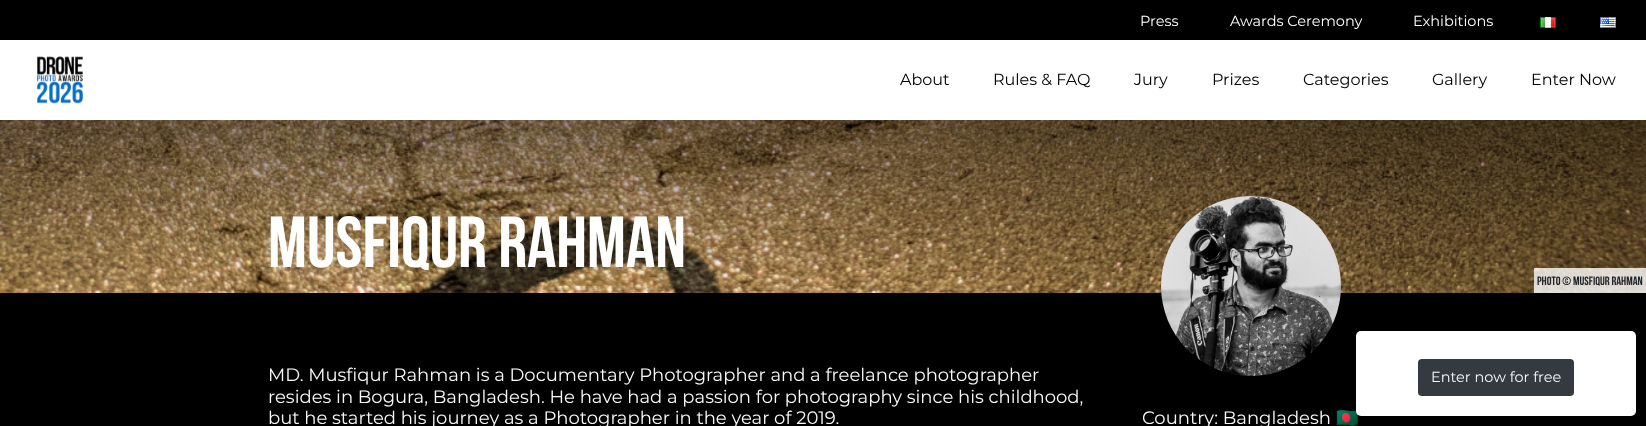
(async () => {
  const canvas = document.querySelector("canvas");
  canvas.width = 1646;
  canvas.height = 426;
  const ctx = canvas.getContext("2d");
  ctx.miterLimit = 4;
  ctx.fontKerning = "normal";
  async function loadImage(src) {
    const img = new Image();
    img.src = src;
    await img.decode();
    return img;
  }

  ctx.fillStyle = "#000000";
  ctx.fillRect(0, 0, 1646, 426);
  ctx.drawImage(await loadImage("img/1.png"), 1540, 17, 16, 11);
  ctx.drawImage(await loadImage("img/2.png"), 1600, 17, 16, 11);
  ctx.fillStyle = "#ffffff";
  ctx.fillRect(0, 40, 1646, 80);
  ctx.drawImage(await loadImage("img/3.png"), 36, 56, 47, 48);
  ctx.drawImage(await loadImage("img/4.png"), 0, 120, 1646, 173);
  ctx.fillStyle = "rgba(255, 255, 255, 0.8)";
  ctx.fillRect(1534, 268, 112, 25);
  ctx.drawImage(await loadImage("img/5.png"), 1161, 196, 180, 180);
  ctx.fillStyle = "#000000";
  ctx.filter = "blur(3px)";
  ctx.beginPath();
  ctx.rect(1362, 345, 268, 73);
  ctx.fill();
  ctx.filter = "none";
  ctx.font = "100 14.5px Montserrat";
  ctx.fillStyle = "#ffffff";
  for (const [text, x, y] of [
    ["Press", 1140, 26],
    ["Awards Ceremony", 1230, 26],
    ["Exhibitions", 1413, 26],
  ]) {
    ctx.fillText(text, x, y);
  }
  ctx.font = "100 16px Montserrat";
  ctx.fillStyle = "#000000";
  for (const [text, x, y] of [
    ["About", 900, 85],
    ["Rules & FAQ", 993, 85],
    ["Jury", 1134, 85],
    ["Prizes", 1212, 85],
    ["Categories", 1303, 85],
    ["Gallery", 1432, 85],
    ["Enter Now", 1531, 85],
  ]) {
    ctx.fillText(text, x, y);
  }
  ctx.font = "bold 72px Bebas Neue";
  ctx.fillStyle = "#ffffff";
  ctx.fillText("MUSFIQUR RAHMAN", 268, 267);
  ctx.font = "bold 12px Bebas Neue";
  ctx.fillStyle = "#212529";
  ctx.fillText("PHOTO © MUSFIQUR RAHMAN", 1537, 285);
  ctx.font = "100 18px Montserrat";
  ctx.fillStyle = "#f8f9fa";
  for (const [text, x, y] of [
    ["MD. Musfiqur Rahman is a Documentary Photographer and a freelance photographer", 268, 381],
    ["resides in Bogura, Bangladesh. He have had a passion for photography since his childhood,", 268, 403],
    ["but he started his journey as a Photographer in the year of 2019.", 268, 424],
    ["Country: Bangladesh", 1142, 424],
  ]) {
    ctx.fillText(text, x, y);
  }
  ctx.font = "18px Noto Color Emoji";
  ctx.fillText("🇧🇩", 1336, 424);
  ctx.fillStyle = "#ffffff";
  ctx.beginPath();
  ctx.roundRect(1356, 331, 280, 85, 5);
  ctx.fill();
  ctx.fillStyle = "#343a40";
  ctx.beginPath();
  ctx.roundRect(1418, 359, 156, 37, 4);
  ctx.fill();
  ctx.font = "100 14.5px Montserrat";
  ctx.fillStyle = "#f8f9fa";
  ctx.fillText("Enter now for free", 1431, 382);
})();
